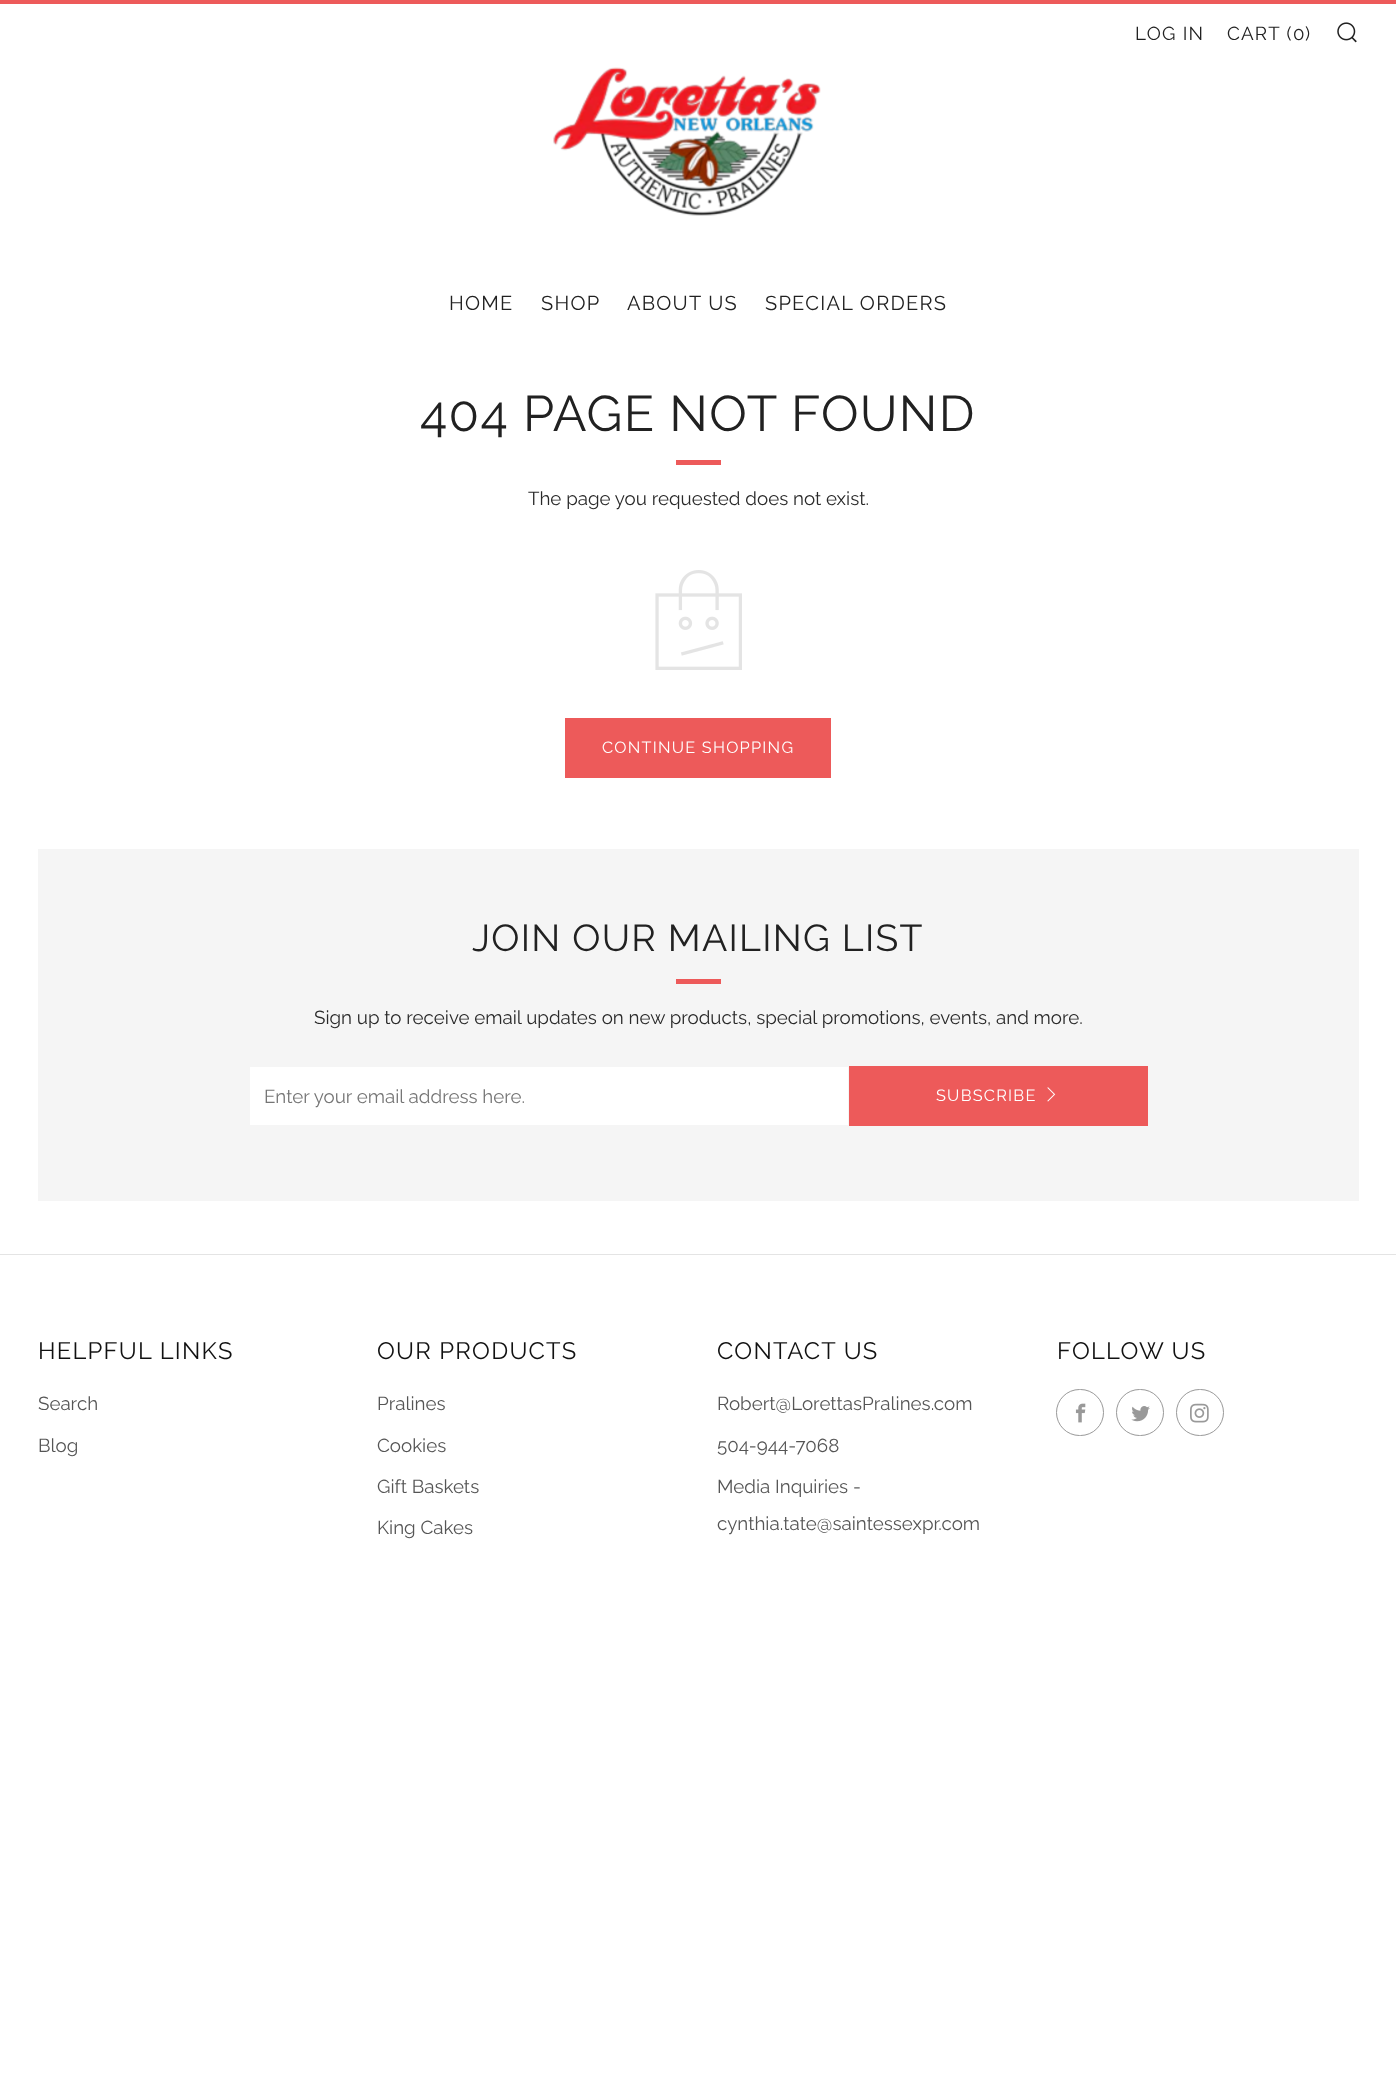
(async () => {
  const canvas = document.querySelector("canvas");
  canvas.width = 1396;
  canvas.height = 2091;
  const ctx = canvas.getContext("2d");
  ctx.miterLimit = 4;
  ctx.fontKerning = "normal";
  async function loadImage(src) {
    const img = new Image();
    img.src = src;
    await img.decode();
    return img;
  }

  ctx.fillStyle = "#ffffff";
  ctx.fillRect(0, 0, 1396, 2091);
  ctx.fillStyle = "#ed5a5a";
  ctx.fillRect(0, 0, 1396, 4);
  ctx.drawImage(await loadImage("img/1.png"), 1337, 22, 20, 21);
  ctx.drawImage(await loadImage("img/2.png"), 553, 67, 268, 149);
  ctx.fillRect(676, 460, 45, 5);
  ctx.drawImage(await loadImage("img/3.png"), 655, 570, 87, 100);
  for (const [x, y, w, h, color] of [
    [565, 718, 266, 60, "#ed5a5a"],
    [38, 849, 1321, 352, "#f5f5f5"],
    [676, 979, 45, 5, "#ed5a5a"],
    [250, 1067, 598, 58, "#ffffff"],
    [849, 1066, 299, 60, "#ed5a5a"],
  ]) {
    ctx.fillStyle = color;
    ctx.fillRect(x, y, w, h);
  }
  ctx.drawImage(await loadImage("img/4.png"), 1047, 1087, 9, 15);
  ctx.fillStyle = "#e4e4e4";
  ctx.fillRect(0, 1254, 1396, 1);
  ctx.beginPath();
  ctx.roundRect(1056.5, 1389.5, 47, 46, 23);
  ctx.strokeStyle = "#999999";
  ctx.stroke();
  ctx.drawImage(await loadImage("img/5.png"), 1075, 1403, 11, 20);
  ctx.beginPath();
  ctx.roundRect(1116.5, 1389.5, 47, 46, 23);
  ctx.stroke();
  ctx.drawImage(await loadImage("img/6.png"), 1131, 1406, 19, 16);
  ctx.beginPath();
  ctx.roundRect(1176.5, 1389.5, 47, 46, 23);
  ctx.stroke();
  ctx.drawImage(await loadImage("img/7.png"), 1190, 1403, 19, 20);
  ctx.letterSpacing = "1.25px";
  ctx.font = "100 18.75px Raleway";
  ctx.fillStyle = "#212121";
  for (const [text, x, y] of [
    ["LOG IN", 1135, 40],
    ["CART (", 1227, 40],
    ["0", 1293, 40],
    [")", 1305, 40],
  ]) {
    ctx.fillText(text, x, y);
  }
  ctx.font = "100 20px Raleway";
  for (const [text, x, y] of [
    ["HOME", 449, 310],
    ["SHOP", 541, 310],
    ["ABOUT US", 627, 310],
    ["SPECIAL ORDERS", 765, 310],
  ]) {
    ctx.fillText(text, x, y);
  }
  ctx.font = "100 50px Raleway";
  ctx.fillText("404 PAGE NOT FOUND", 420, 431);
  ctx.letterSpacing = "0px";
  ctx.font = "100 18.75px Raleway";
  ctx.fillStyle = "#292929";
  ctx.fillText("The page you requested does not exist.", 528, 505);
  ctx.letterSpacing = "1.25px";
  ctx.font = "100 16.25px Raleway";
  ctx.fillStyle = "#ffffff";
  ctx.fillText("CONTINUE SHOPPING", 602, 753);
  ctx.font = "100 37.5px Raleway";
  ctx.fillStyle = "#212121";
  ctx.fillText("JOIN OUR MAILING LIST", 472, 951);
  ctx.letterSpacing = "0px";
  ctx.font = "100 18.75px Raleway";
  ctx.fillStyle = "#292929";
  ctx.fillText("Sign up to receive email updates on new products, special promotions, events, and more.", 314, 1024);
  ctx.fillStyle = "#757575";
  ctx.fillText("Enter your email address here.", 264, 1103);
  ctx.letterSpacing = "1.25px";
  ctx.font = "100 16.25px Raleway";
  ctx.fillStyle = "#ffffff";
  ctx.fillText("SUBSCRIBE", 936, 1101);
  ctx.font = "100 23.75px Raleway";
  ctx.fillStyle = "#111111";
  ctx.fillText("HELPFUL LINKS", 38, 1359);
  ctx.letterSpacing = "0px";
  ctx.font = "100 18.75px Raleway";
  ctx.fillStyle = "#555555";
  ctx.fillText("Search", 38, 1410);
  ctx.fillText("Blog", 38, 1452);
  ctx.letterSpacing = "1.25px";
  ctx.font = "100 23.75px Raleway";
  ctx.fillStyle = "#111111";
  ctx.fillText("OUR PRODUCTS", 377, 1359);
  ctx.letterSpacing = "0px";
  ctx.font = "100 18.75px Raleway";
  ctx.fillStyle = "#555555";
  for (const [text, x, y] of [
    ["Pralines", 377, 1410],
    ["Cookies", 377, 1452],
    ["Gift Baskets", 377, 1493],
    ["King Cakes", 377, 1534],
  ]) {
    ctx.fillText(text, x, y);
  }
  ctx.letterSpacing = "1.25px";
  ctx.font = "100 23.75px Raleway";
  ctx.fillStyle = "#111111";
  ctx.fillText("CONTACT US", 717, 1359);
  ctx.letterSpacing = "0px";
  ctx.font = "100 18.75px Raleway";
  ctx.fillStyle = "#555555";
  for (const [text, x, y] of [
    ["Robert@LorettasPralines.com", 717, 1410],
    ["504-944-7068", 717, 1452],
    ["Media Inquiries -", 717, 1493],
    ["cynthia.tate@saintessexpr.com", 717, 1530],
  ]) {
    ctx.fillText(text, x, y);
  }
  ctx.letterSpacing = "1.25px";
  ctx.font = "100 23.75px Raleway";
  ctx.fillStyle = "#111111";
  ctx.fillText("FOLLOW US", 1057, 1359);
})();
